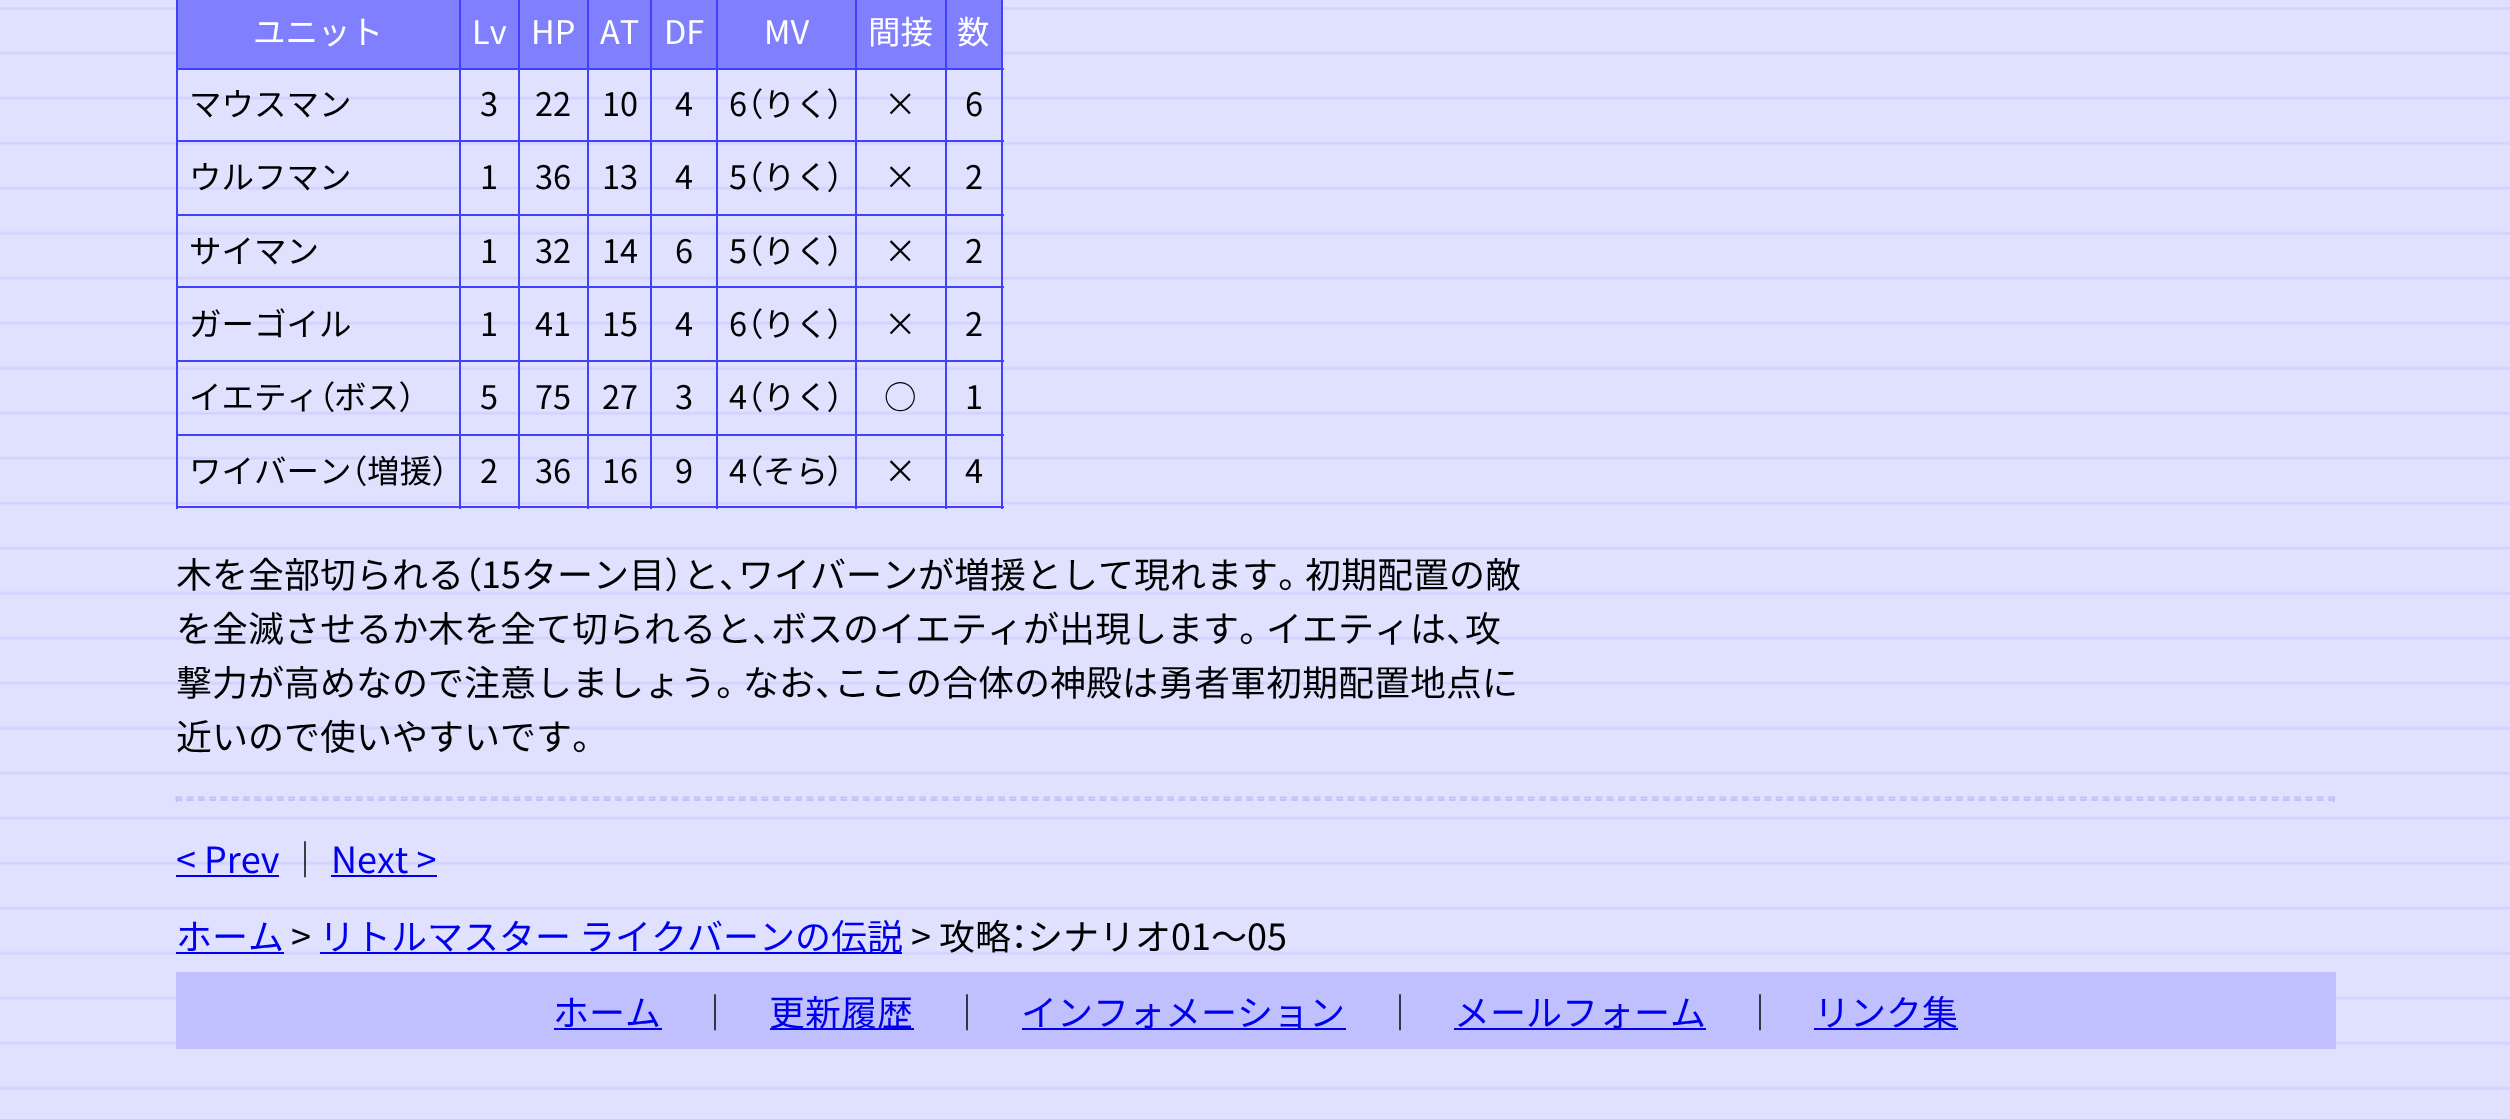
(async () => {
  const canvas = document.querySelector("canvas");
  canvas.width = 2510;
  canvas.height = 1119;
  const ctx = canvas.getContext("2d");
  ctx.miterLimit = 4;
  ctx.fontKerning = "normal";
  async function loadImage(src) {
    const img = new Image();
    img.src = src;
    await img.decode();
    return img;
  }
  let path;

  ctx.fillStyle = "#e0e0ff";
  ctx.fillRect(0, 0, 2510, 1119);
  ctx.drawImage(await loadImage("img/1.png"), 0, 7, 2510, 1083);
  for (const [x, y, w, h, color] of [
    [178, 0, 281, 68, "#8080ff"],
    [461, 0, 57, 68, "#8080ff"],
    [945, 68, 59, 2, "#4040ff"],
    [945, 140, 59, 2, "#4040ff"],
    [945, 214, 59, 2, "#4040ff"],
    [945, 286, 59, 2, "#4040ff"],
    [945, 360, 59, 2, "#4040ff"],
    [945, 434, 59, 2, "#4040ff"],
    [1001, 434, 2, 75, "#4040ff"],
    [945, 506, 59, 2, "#4040ff"],
    [945, 434, 2, 75, "#4040ff"],
    [855, 434, 92, 2, "#4040ff"],
    [945, 360, 2, 77, "#4040ff"],
    [855, 360, 92, 2, "#4040ff"],
    [945, 286, 2, 76, "#4040ff"],
    [855, 286, 92, 2, "#4040ff"],
    [945, 214, 2, 74, "#4040ff"],
    [855, 214, 92, 2, "#4040ff"],
    [945, 140, 2, 76, "#4040ff"],
    [855, 140, 92, 2, "#4040ff"],
    [945, 68, 2, 74, "#4040ff"],
    [855, 68, 92, 2, "#4040ff"],
    [855, 506, 92, 2, "#4040ff"],
    [855, 434, 2, 75, "#4040ff"],
    [716, 434, 141, 2, "#4040ff"],
    [855, 360, 2, 77, "#4040ff"],
    [716, 360, 141, 2, "#4040ff"],
    [855, 286, 2, 76, "#4040ff"],
    [716, 286, 141, 2, "#4040ff"],
    [855, 214, 2, 74, "#4040ff"],
    [716, 214, 141, 2, "#4040ff"],
    [855, 140, 2, 76, "#4040ff"],
    [716, 140, 141, 2, "#4040ff"],
    [855, 68, 2, 74, "#4040ff"],
    [716, 68, 141, 2, "#4040ff"],
    [716, 506, 141, 2, "#4040ff"],
    [716, 434, 2, 75, "#4040ff"],
    [650, 434, 68, 2, "#4040ff"],
    [716, 360, 2, 77, "#4040ff"],
    [650, 360, 68, 2, "#4040ff"],
    [716, 286, 2, 76, "#4040ff"],
    [650, 286, 68, 2, "#4040ff"],
    [716, 214, 2, 74, "#4040ff"],
    [650, 214, 68, 2, "#4040ff"],
    [716, 140, 2, 76, "#4040ff"],
    [650, 140, 68, 2, "#4040ff"],
    [716, 68, 2, 74, "#4040ff"],
    [650, 68, 68, 2, "#4040ff"],
    [650, 506, 68, 2, "#4040ff"],
    [650, 434, 2, 75, "#4040ff"],
    [587, 434, 66, 2, "#4040ff"],
    [650, 360, 2, 77, "#4040ff"],
    [587, 360, 66, 2, "#4040ff"],
    [650, 286, 2, 76, "#4040ff"],
    [587, 286, 66, 2, "#4040ff"],
    [650, 214, 2, 74, "#4040ff"],
    [587, 214, 66, 2, "#4040ff"],
    [650, 140, 2, 76, "#4040ff"],
    [587, 140, 66, 2, "#4040ff"],
    [650, 68, 2, 74, "#4040ff"],
    [587, 68, 66, 2, "#4040ff"],
    [587, 506, 66, 2, "#4040ff"],
    [587, 434, 2, 75, "#4040ff"],
    [518, 434, 72, 2, "#4040ff"],
    [587, 360, 2, 77, "#4040ff"],
    [518, 360, 72, 2, "#4040ff"],
    [587, 286, 2, 76, "#4040ff"],
    [518, 286, 72, 2, "#4040ff"],
    [587, 214, 2, 74, "#4040ff"],
    [518, 214, 72, 2, "#4040ff"],
    [587, 140, 2, 76, "#4040ff"],
    [518, 140, 72, 2, "#4040ff"],
    [587, 68, 2, 74, "#4040ff"],
    [518, 68, 72, 2, "#4040ff"],
    [518, 506, 72, 2, "#4040ff"],
    [518, 434, 2, 75, "#4040ff"],
    [459, 434, 61, 2, "#4040ff"],
    [518, 360, 2, 77, "#4040ff"],
    [459, 360, 61, 2, "#4040ff"],
    [518, 286, 2, 76, "#4040ff"],
    [459, 286, 61, 2, "#4040ff"],
    [518, 214, 2, 74, "#4040ff"],
    [459, 214, 61, 2, "#4040ff"],
    [518, 140, 2, 76, "#4040ff"],
    [459, 140, 61, 2, "#4040ff"],
    [518, 68, 2, 74, "#4040ff"],
    [459, 68, 61, 2, "#4040ff"],
    [459, 506, 61, 2, "#4040ff"],
    [459, 434, 2, 75, "#4040ff"],
    [176, 434, 285, 2, "#4040ff"],
    [459, 360, 2, 77, "#4040ff"],
    [176, 360, 285, 2, "#4040ff"],
    [459, 286, 2, 76, "#4040ff"],
    [176, 286, 285, 2, "#4040ff"],
    [459, 214, 2, 74, "#4040ff"],
    [176, 214, 285, 2, "#4040ff"],
    [459, 140, 2, 76, "#4040ff"],
    [176, 140, 285, 2, "#4040ff"],
    [459, 68, 2, 74, "#4040ff"],
    [176, 68, 285, 2, "#4040ff"],
    [459, 0, 2, 70, "#4040ff"],
    [520, 0, 67, 68, "#8080ff"],
    [518, 0, 2, 70, "#4040ff"],
    [589, 0, 127, 68, "#8080ff"],
    [587, 0, 2, 70, "#4040ff"],
    [650, 0, 2, 70, "#4040ff"],
    [718, 0, 137, 68, "#8080ff"],
    [716, 0, 2, 70, "#4040ff"],
    [857, 0, 88, 68, "#8080ff"],
    [855, 0, 2, 70, "#4040ff"],
    [947, 0, 54, 68, "#8080ff"],
    [945, 0, 2, 70, "#4040ff"],
    [176, 506, 285, 2, "#4040ff"],
    [176, 434, 2, 75, "#4040ff"],
    [176, 360, 2, 77, "#4040ff"],
    [176, 286, 2, 76, "#4040ff"],
    [176, 214, 2, 74, "#4040ff"],
    [176, 140, 2, 76, "#4040ff"],
    [176, 0, 2, 142, "#4040ff"],
    [1001, 360, 2, 77, "#4040ff"],
    [1001, 286, 2, 76, "#4040ff"],
    [1001, 214, 2, 74, "#4040ff"],
    [1001, 140, 2, 76, "#4040ff"],
    [1001, 0, 2, 142, "#4040ff"],
  ]) {
    ctx.fillStyle = color;
    ctx.fillRect(x, y, w, h);
  }
  path = new Path2D("M175.5 797.5H2335.5");
  ctx.strokeStyle = "#c0c0ff";
  ctx.lineWidth = 2.2;
  ctx.setLineDash([6.75, 4.52]);
  ctx.stroke(path);
  ctx.fillStyle = "#c0c0ff";
  ctx.fillRect(2333, 797, 2, 5);
  path = new Path2D("M175.5 800H2335.5");
  ctx.stroke(path);
  for (const [x, y, w, h, color] of [
    [176, 797, 2, 5, "#c0c0ff"],
    [176, 875, 103, 2, "#0000ee"],
    [331, 875, 106, 2, "#0000ee"],
    [176, 952, 108, 2, "#0000ee"],
    [320, 952, 582, 2, "#0000ee"],
    [176, 972, 2160, 77, "#c0c0ff"],
    [554, 1028, 108, 2, "#0000ee"],
    [770, 1028, 144, 2, "#0000ee"],
    [1022, 1028, 324, 2, "#0000ee"],
    [1454, 1028, 252, 2, "#0000ee"],
    [1814, 1028, 144, 2, "#0000ee"],
  ]) {
    ctx.fillStyle = color;
    ctx.fillRect(x, y, w, h);
  }
  ctx.font = "32.5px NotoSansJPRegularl";
  ctx.fillStyle = "#ffffff";
  for (const [text, x, y] of [
    ["ユニット", 253, 44],
    ["Lv", 472, 44],
    ["HP", 531, 44],
    ["AT", 600, 44],
    ["DF", 664, 44],
    ["MV", 764, 44],
    ["間接", 868, 44],
    ["数", 957, 44],
  ]) {
    ctx.fillText(text, x, y);
  }
  ctx.fillStyle = "#000000";
  for (const [text, x, y] of [
    ["マウスマン", 189, 116],
    ["3", 480, 116],
    ["22", 535, 116],
    ["10", 602, 116],
    ["4", 675, 116],
    ["6", 729, 116],
  ]) {
    ctx.fillText(text, x, y);
  }
  ctx.font = "32.5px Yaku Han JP";
  ctx.fillText("（", 747, 116);
  ctx.font = "32.5px NotoSansJPRegularl";
  ctx.fillText("りく", 763, 116);
  ctx.font = "32.5px Yaku Han JP";
  ctx.fillText("）", 827, 116);
  ctx.font = "32.5px NotoSansJPRegularl";
  for (const [text, x, y] of [
    ["×", 884, 116],
    ["6", 965, 116],
    ["ウルフマン", 189, 189],
    ["1", 480, 189],
    ["36", 535, 189],
    ["13", 602, 189],
    ["4", 675, 189],
    ["5", 729, 189],
  ]) {
    ctx.fillText(text, x, y);
  }
  ctx.font = "32.5px Yaku Han JP";
  ctx.fillText("（", 747, 189);
  ctx.font = "32.5px NotoSansJPRegularl";
  ctx.fillText("りく", 763, 189);
  ctx.font = "32.5px Yaku Han JP";
  ctx.fillText("）", 827, 189);
  ctx.font = "32.5px NotoSansJPRegularl";
  for (const [text, x, y] of [
    ["×", 884, 189],
    ["2", 965, 189],
    ["サイマン", 189, 263],
    ["1", 480, 263],
    ["32", 535, 263],
    ["14", 602, 263],
    ["6", 675, 263],
    ["5", 729, 263],
  ]) {
    ctx.fillText(text, x, y);
  }
  ctx.font = "32.5px Yaku Han JP";
  ctx.fillText("（", 747, 263);
  ctx.font = "32.5px NotoSansJPRegularl";
  ctx.fillText("りく", 763, 263);
  ctx.font = "32.5px Yaku Han JP";
  ctx.fillText("）", 827, 263);
  ctx.font = "32.5px NotoSansJPRegularl";
  for (const [text, x, y] of [
    ["×", 884, 263],
    ["2", 965, 263],
    ["ガーゴイル", 189, 336],
    ["1", 480, 336],
    ["41", 535, 336],
    ["15", 602, 336],
    ["4", 675, 336],
    ["6", 729, 336],
  ]) {
    ctx.fillText(text, x, y);
  }
  ctx.font = "32.5px Yaku Han JP";
  ctx.fillText("（", 747, 336);
  ctx.font = "32.5px NotoSansJPRegularl";
  ctx.fillText("りく", 763, 336);
  ctx.font = "32.5px Yaku Han JP";
  ctx.fillText("）", 827, 336);
  ctx.font = "32.5px NotoSansJPRegularl";
  for (const [text, x, y] of [
    ["×", 884, 336],
    ["2", 965, 336],
    ["イエティ", 189, 409],
  ]) {
    ctx.fillText(text, x, y);
  }
  ctx.font = "32.5px Yaku Han JP";
  ctx.fillText("（", 319, 409);
  ctx.font = "32.5px NotoSansJPRegularl";
  ctx.fillText("ボス", 334, 409);
  ctx.font = "32.5px Yaku Han JP";
  ctx.fillText("）", 399, 409);
  ctx.font = "32.5px NotoSansJPRegularl";
  for (const [text, x, y] of [
    ["5", 480, 409],
    ["75", 535, 409],
    ["27", 602, 409],
    ["3", 675, 409],
    ["4", 729, 409],
  ]) {
    ctx.fillText(text, x, y);
  }
  ctx.font = "32.5px Yaku Han JP";
  ctx.fillText("（", 747, 409);
  ctx.font = "32.5px NotoSansJPRegularl";
  ctx.fillText("りく", 763, 409);
  ctx.font = "32.5px Yaku Han JP";
  ctx.fillText("）", 827, 409);
  ctx.font = "32.5px NotoSansJPRegularl";
  for (const [text, x, y] of [
    ["○", 884, 409],
    ["1", 965, 409],
    ["ワイバーン", 189, 483],
  ]) {
    ctx.fillText(text, x, y);
  }
  ctx.font = "32.5px Yaku Han JP";
  ctx.fillText("（", 351, 483);
  ctx.font = "32.5px NotoSansJPRegularl";
  ctx.fillText("増援", 367, 483);
  ctx.font = "32.5px Yaku Han JP";
  ctx.fillText("）", 432, 483);
  ctx.font = "32.5px NotoSansJPRegularl";
  for (const [text, x, y] of [
    ["2", 480, 483],
    ["36", 535, 483],
    ["16", 602, 483],
    ["9", 675, 483],
    ["4", 729, 483],
  ]) {
    ctx.fillText(text, x, y);
  }
  ctx.font = "32.5px Yaku Han JP";
  ctx.fillText("（", 747, 483);
  ctx.font = "32.5px NotoSansJPRegularl";
  ctx.fillText("そら", 763, 483);
  ctx.font = "32.5px Yaku Han JP";
  ctx.fillText("）", 827, 483);
  ctx.font = "32.5px NotoSansJPRegularl";
  ctx.fillText("×", 884, 483);
  ctx.fillText("4", 965, 483);
  ctx.font = "36px NotoSansJPRegularl";
  ctx.fillText("木を全部切られる", 176, 588);
  ctx.font = "36px Yaku Han JP";
  ctx.fillText("（", 464, 588);
  ctx.font = "36px NotoSansJPRegularl";
  ctx.fillText("15ターン目", 481, 588);
  ctx.font = "36px Yaku Han JP";
  ctx.fillText("）", 665, 588);
  ctx.font = "36px NotoSansJPRegularl";
  ctx.fillText("と", 683, 588);
  ctx.font = "36px Yaku Han JP";
  ctx.fillText("、", 719, 588);
  ctx.font = "36px NotoSansJPRegularl";
  ctx.fillText("ワイバーンが増援として現れます", 738, 588);
  ctx.font = "36px Yaku Han JP";
  ctx.fillText("。", 1278, 588);
  ctx.font = "36px NotoSansJPRegularl";
  ctx.fillText("初期配置の敵", 1305, 588);
  ctx.fillText("を全滅させるか木を全て切られると", 176, 642);
  ctx.font = "36px Yaku Han JP";
  ctx.fillText("、", 752, 642);
  ctx.font = "36px NotoSansJPRegularl";
  ctx.fillText("ボスのイエティが出現します", 771, 642);
  ctx.font = "36px Yaku Han JP";
  ctx.fillText("。", 1239, 642);
  ctx.font = "36px NotoSansJPRegularl";
  ctx.fillText("イエティは", 1266, 642);
  ctx.font = "36px Yaku Han JP";
  ctx.fillText("、", 1446, 642);
  ctx.font = "36px NotoSansJPRegularl";
  ctx.fillText("攻", 1465, 642);
  ctx.fillText("撃力が高めなので注意しましょう", 176, 696);
  ctx.font = "36px Yaku Han JP";
  ctx.fillText("。", 716, 696);
  ctx.font = "36px NotoSansJPRegularl";
  ctx.fillText("なお", 743, 696);
  ctx.font = "36px Yaku Han JP";
  ctx.fillText("、", 815, 696);
  ctx.font = "36px NotoSansJPRegularl";
  ctx.fillText("ここの合体の神殿は勇者軍初期配置地点に", 834, 696);
  ctx.fillText("近いので使いやすいです", 176, 750);
  ctx.font = "36px Yaku Han JP";
  ctx.fillText("。", 572, 750);
  ctx.font = "36px NotoSansJPRegularl";
  ctx.fillStyle = "#0000ee";
  ctx.fillText("< Prev", 176, 873);
  ctx.fillStyle = "#000000";
  ctx.fillText("｜", 287, 873);
  ctx.fillStyle = "#0000ee";
  ctx.fillText("Next >", 331, 873);
  ctx.fillText("ホーム", 176, 950);
  ctx.fillStyle = "#000000";
  ctx.fillText(">", 291, 950);
  ctx.fillStyle = "#0000ee";
  ctx.fillText("リトルマスター ライクバーンの伝説", 319, 950);
  ctx.fillStyle = "#000000";
  ctx.fillText("> 攻略", 911, 950);
  ctx.font = "36px Yaku Han JP";
  ctx.fillText("：", 1011, 950);
  ctx.font = "36px NotoSansJPRegularl";
  ctx.fillText("シナリオ01～05", 1027, 950);
  ctx.fillStyle = "#0000ee";
  ctx.fillText("ホーム", 553, 1026);
  ctx.fillStyle = "#000000";
  ctx.fillText("｜", 697, 1026);
  ctx.fillStyle = "#0000ee";
  ctx.fillText("更新履歴", 769, 1026);
  ctx.fillStyle = "#000000";
  ctx.fillText("｜", 949, 1026);
  ctx.fillStyle = "#0000ee";
  ctx.fillText("インフォメーション", 1021, 1026);
  ctx.fillStyle = "#000000";
  ctx.fillText("｜", 1382, 1026);
  ctx.fillStyle = "#0000ee";
  ctx.fillText("メールフォーム", 1454, 1026);
  ctx.fillStyle = "#000000";
  ctx.fillText("｜", 1742, 1026);
  ctx.fillStyle = "#0000ee";
  ctx.fillText("リンク集", 1814, 1026);
})();
